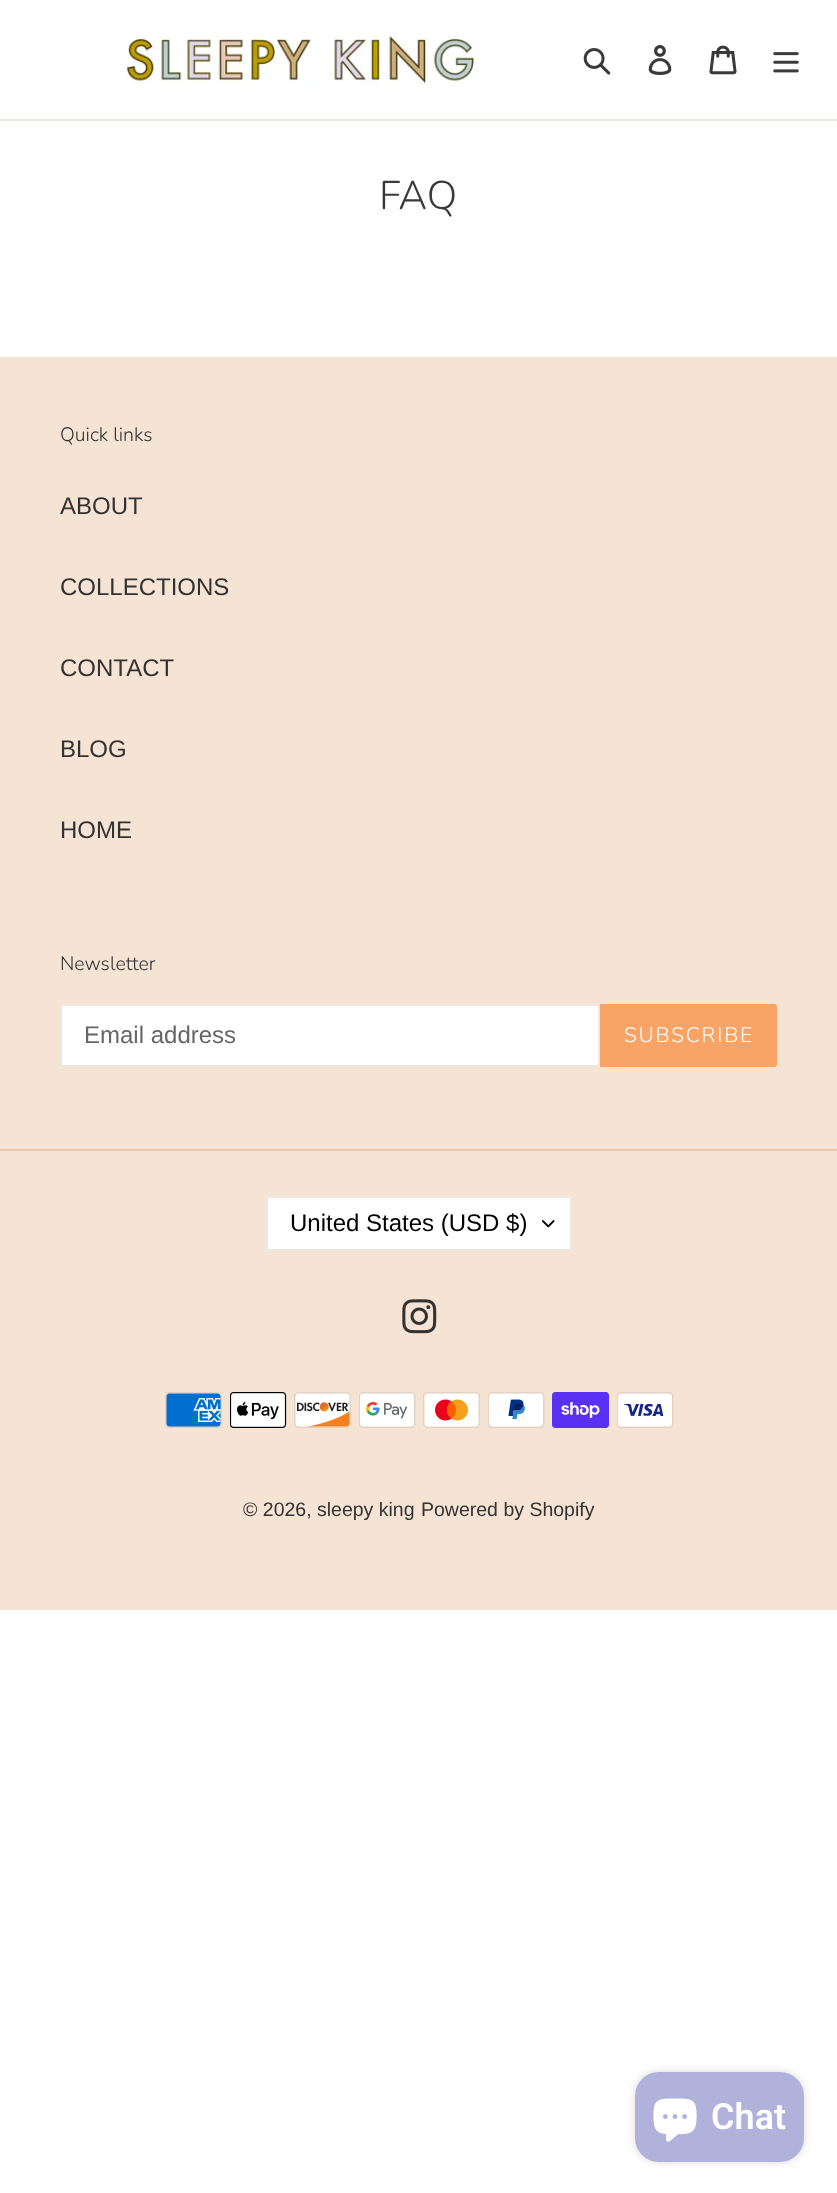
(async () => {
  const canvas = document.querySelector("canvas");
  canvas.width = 837;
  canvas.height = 2193;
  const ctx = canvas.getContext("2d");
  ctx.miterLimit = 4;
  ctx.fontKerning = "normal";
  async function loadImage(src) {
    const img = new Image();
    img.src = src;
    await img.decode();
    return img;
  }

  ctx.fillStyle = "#ffffff";
  ctx.fillRect(0, 0, 837, 2193);
  ctx.fillStyle = "#ede7e2";
  ctx.fillRect(0, 119, 837, 2);
  ctx.drawImage(await loadImage("img/1.png"), 125, 31, 353, 58);
  ctx.drawImage(await loadImage("img/2.png"), 583, 48, 28, 27);
  ctx.drawImage(await loadImage("img/3.png"), 648, 45, 24, 30);
  ctx.drawImage(await loadImage("img/4.png"), 709, 45, 28, 30);
  ctx.drawImage(await loadImage("img/5.png"), 773, 52, 26, 21);
  ctx.fillStyle = "#f5e3d4";
  ctx.fillRect(0, 357, 837, 1253);
  ctx.fillStyle = "#ffffff";
  ctx.beginPath();
  ctx.roundRect(61, 1005, 538, 61, [2, 0, 0, 2]);
  ctx.fill();
  ctx.strokeStyle = "#ede7e2";
  ctx.lineWidth = 2;
  ctx.stroke();
  ctx.fillStyle = "#f8a466";
  ctx.beginPath();
  ctx.roundRect(600, 1004, 177, 63, [0, 3, 3, 0]);
  ctx.fill();
  ctx.fillStyle = "#ebc8ab";
  ctx.fillRect(0, 1149, 837, 2);
  ctx.fillStyle = "#ffffff";
  ctx.beginPath();
  ctx.roundRect(266, 1196, 306, 55, 3);
  ctx.fill();
  ctx.drawImage(await loadImage("img/6.png"), 542, 1220, 13, 8);
  ctx.beginPath();
  ctx.roundRect(267, 1197, 304, 53, 2);
  ctx.stroke();
  ctx.drawImage(await loadImage("img/7.png"), 402, 1299, 35, 35);
  ctx.drawImage(await loadImage("img/8.png"), 165, 1392, 57, 36);
  ctx.drawImage(await loadImage("img/9.png"), 230, 1392, 57, 36);
  ctx.drawImage(await loadImage("img/10.png"), 294, 1392, 57, 36);
  ctx.drawImage(await loadImage("img/11.png"), 359, 1392, 57, 36);
  ctx.drawImage(await loadImage("img/12.png"), 423, 1392, 57, 36);
  ctx.drawImage(await loadImage("img/13.png"), 488, 1392, 57, 36);
  ctx.drawImage(await loadImage("img/14.png"), 552, 1392, 57, 36);
  ctx.drawImage(await loadImage("img/15.png"), 617, 1392, 57, 36);
  ctx.fillStyle = "rgba(0, 0, 0, 0.15)";
  ctx.filter = "blur(4px)";
  ctx.beginPath();
  ctx.roundRect(635, 2072, 169, 90, 24);
  ctx.fill();
  ctx.filter = "none";
  ctx.fillStyle = "#b0b2dc";
  ctx.beginPath();
  ctx.roundRect(635, 2072, 169, 90, 24);
  ctx.fill();
  ctx.drawImage(await loadImage("img/16.png"), 653, 2098, 44, 44);
  ctx.font = "300 40px Nunito";
  ctx.fillStyle = "#3a3a3a";
  ctx.fillText("FAQ", 379, 209);
  ctx.font = "300 19.5px Nunito";
  ctx.fillStyle = "#333232";
  ctx.fillText("Quick links", 60, 441);
  ctx.font = "24px Liberation Sans";
  for (const [text, x, y] of [
    ["ABOUT", 60, 514],
    ["COLLECTIONS", 60, 595],
    ["CONTACT", 60, 676],
    ["BLOG", 60, 757],
    ["HOME", 60, 838],
  ]) {
    ctx.fillText(text, x, y);
  }
  ctx.font = "300 19.5px Nunito";
  ctx.fillText("Newsletter", 60, 970);
  ctx.font = "24px Liberation Sans";
  ctx.fillStyle = "#666666";
  ctx.fillText("Email address", 84, 1043);
  ctx.letterSpacing = "1.75px";
  ctx.font = "300 21px Nunito";
  ctx.fillStyle = "#ffffff";
  ctx.fillText("SUBSCRIBE", 624, 1042);
  ctx.letterSpacing = "0px";
  ctx.font = "24px Liberation Sans";
  ctx.fillStyle = "#000000";
  ctx.fillText("United States (USD $)", 290, 1231);
  ctx.font = "19.5px Liberation Sans";
  ctx.fillStyle = "#333232";
  ctx.fillText("© 2026, sleepy king", 243, 1516);
  ctx.fillText("Powered by Shopify", 421, 1516);
  ctx.font = "600 36px Roboto";
  ctx.fillStyle = "#ffffff";
  ctx.fillText("Chat", 711, 2129);
})();
